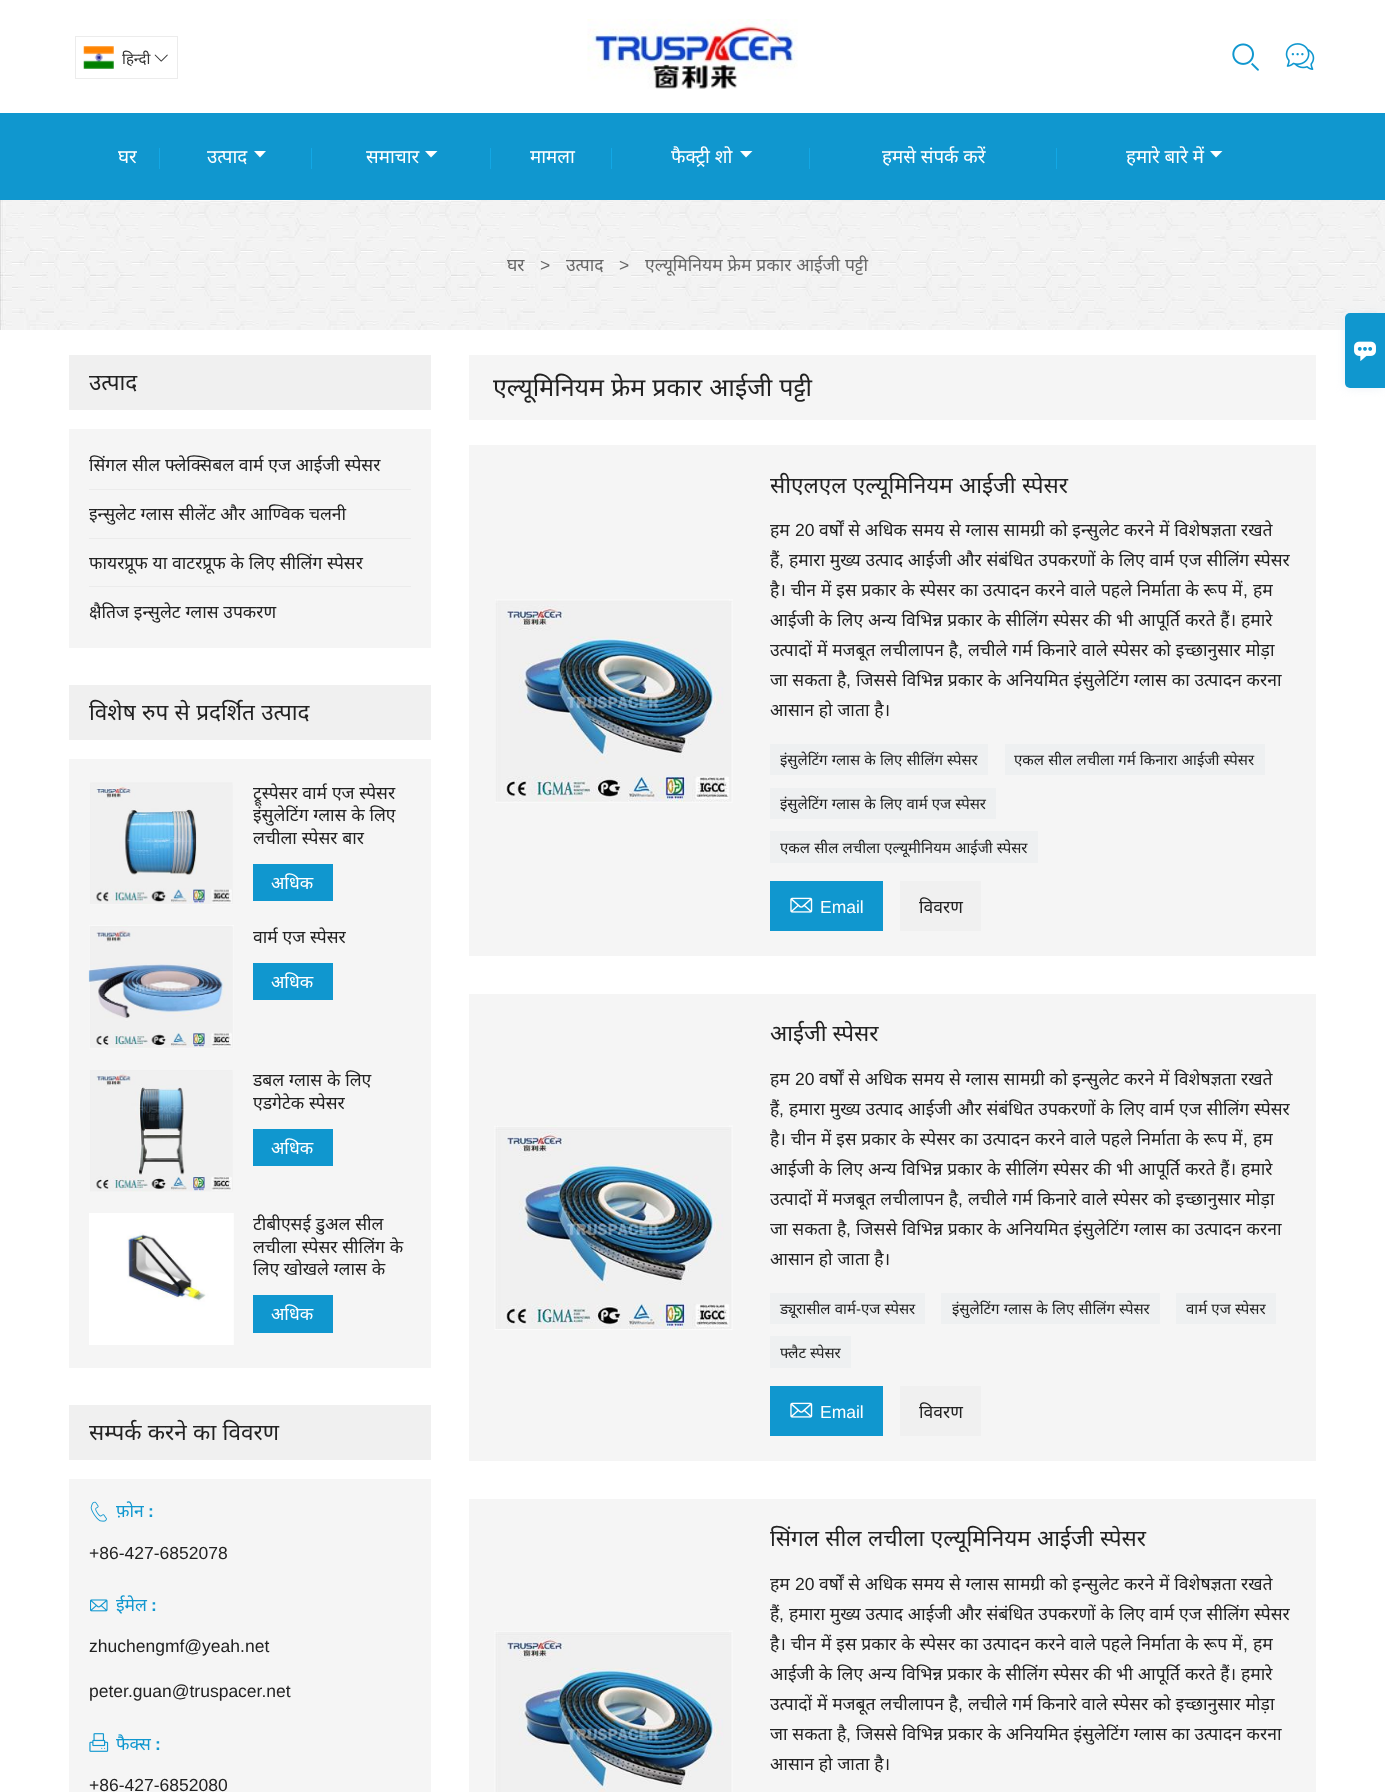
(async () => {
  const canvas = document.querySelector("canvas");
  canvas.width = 1385;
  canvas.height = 1792;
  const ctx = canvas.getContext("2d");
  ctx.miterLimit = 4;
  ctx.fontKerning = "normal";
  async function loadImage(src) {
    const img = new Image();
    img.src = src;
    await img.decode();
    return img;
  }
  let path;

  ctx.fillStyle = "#ffffff";
  ctx.fillRect(0, 0, 1385, 1792);
  ctx.strokeStyle = "#ececec";
  ctx.strokeRect(75.5, 36.5, 102, 42);
  ctx.drawImage(await loadImage("img/1.png"), 83, 46, 31, 23);
  ctx.drawImage(await loadImage("img/2.png"), 154, 54, 14, 8);
  ctx.drawImage(await loadImage("img/3.png"), 587, 19, 211, 70);
  ctx.drawImage(await loadImage("img/4.png"), 1232, 43, 27, 28);
  ctx.drawImage(await loadImage("img/5.png"), 1285, 43, 30, 27);
  ctx.fillStyle = "#1097cf";
  ctx.fillRect(0, 113, 1385, 87);
  ctx.fillStyle = "#12a8e6";
  ctx.fillRect(159, 148, 1, 21);
  ctx.fillStyle = "#ffffff";
  path = new Path2D("M254 151H266L260 157.5Z");
  ctx.fill(path);
  ctx.fillStyle = "#12a8e6";
  ctx.fillRect(311, 148, 1, 21);
  ctx.fillStyle = "#ffffff";
  path = new Path2D("M425 151H437.5L431 157.5Z");
  ctx.fill(path);
  ctx.fillStyle = "#12a8e6";
  ctx.fillRect(490, 148, 1, 21);
  ctx.fillRect(611, 148, 1, 21);
  ctx.fillStyle = "#ffffff";
  path = new Path2D("M740 151H752.5L746 157.5Z");
  ctx.fill(path);
  ctx.fillStyle = "#12a8e6";
  ctx.fillRect(809, 148, 1, 21);
  ctx.fillRect(1056, 148, 1, 21);
  ctx.fillStyle = "#ffffff";
  path = new Path2D("M1210 151H1222.5L1216 157.5Z");
  ctx.fill(path);
  ctx.drawImage(await loadImage("img/6.png"), 0, 200, 1385, 130);
  for (const [x, y, w, h, color] of [
    [69, 355, 362, 55, "#f0f0f0"],
    [69, 429, 362, 219, "#f5f5f5"],
    [89, 489, 322, 1, "#ebebeb"],
    [89, 538, 322, 1, "#ebebeb"],
    [89, 586, 322, 1, "#ebebeb"],
    [69, 685, 362, 55, "#f0f0f0"],
    [69, 759, 362, 609, "#f5f5f5"],
  ]) {
    ctx.fillStyle = color;
    ctx.fillRect(x, y, w, h);
  }
  ctx.drawImage(await loadImage("img/7.png"), 90, 782, 143, 123);
  ctx.fillStyle = "#1097cf";
  ctx.fillRect(253, 864, 80, 37);
  ctx.drawImage(await loadImage("img/8.png"), 88, 925, 146, 124);
  ctx.fillRect(253, 963, 80, 37);
  ctx.drawImage(await loadImage("img/9.png"), 90, 1070, 143, 122);
  ctx.fillRect(253, 1129, 80, 37);
  ctx.drawImage(await loadImage("img/10.png"), 89, 1213, 145, 132);
  for (const [x, y, w, h, color] of [
    [253, 1295, 80, 38, "#1097cf"],
    [69, 1405, 362, 55, "#f0f0f0"],
    [69, 1479, 362, 313, "#f5f5f5"],
  ]) {
    ctx.fillStyle = color;
    ctx.fillRect(x, y, w, h);
  }
  ctx.drawImage(await loadImage("img/11.png"), 90, 1501, 17, 21);
  ctx.drawImage(await loadImage("img/12.png"), 90, 1599, 18, 13);
  ctx.drawImage(await loadImage("img/13.png"), 89, 1733, 20, 19);
  ctx.fillRect(469, 355, 847, 65);
  ctx.fillRect(469, 445, 847, 511);
  ctx.drawImage(await loadImage("img/14.png"), 495, 599, 238, 204);
  for (const [x, y, w, h, color] of [
    [770, 744, 218, 31, "#eef0f1"],
    [1005, 744, 260, 31, "#eef0f1"],
    [770, 788, 226, 31, "#eef0f1"],
    [770, 831, 268, 32, "#eef0f1"],
    [770, 881, 113, 50, "#1097cf"],
  ]) {
    ctx.fillStyle = color;
    ctx.fillRect(x, y, w, h);
  }
  ctx.drawImage(await loadImage("img/15.png"), 790, 897, 23, 16);
  ctx.fillStyle = "#f0f0f0";
  ctx.fillRect(900, 881, 81, 50);
  ctx.fillStyle = "#f5f5f5";
  ctx.fillRect(469, 994, 847, 467);
  ctx.drawImage(await loadImage("img/16.png"), 494, 1125, 239, 205);
  for (const [x, y, w, h, color] of [
    [770, 1293, 155, 31, "#eef0f1"],
    [941, 1293, 219, 31, "#eef0f1"],
    [1176, 1293, 100, 31, "#eef0f1"],
    [770, 1336, 81, 32, "#eef0f1"],
    [770, 1386, 113, 50, "#1097cf"],
  ]) {
    ctx.fillStyle = color;
    ctx.fillRect(x, y, w, h);
  }
  ctx.drawImage(await loadImage("img/15.png"), 790, 1402, 23, 16);
  ctx.fillStyle = "#f0f0f0";
  ctx.fillRect(900, 1386, 81, 50);
  ctx.fillStyle = "#f5f5f5";
  ctx.fillRect(469, 1499, 847, 293);
  ctx.drawImage(await loadImage("img/17.png"), 494, 1630, 239, 162);
  ctx.fillStyle = "#eaf0f6";
  ctx.filter = "blur(5px)";
  ctx.beginPath();
  ctx.roundRect(1345, 313, 40, 75, 5);
  ctx.fill();
  ctx.filter = "none";
  ctx.fillStyle = "#1097cf";
  ctx.beginPath();
  ctx.roundRect(1345, 313, 40, 75, [5, 0, 0, 5]);
  ctx.fill();
  ctx.drawImage(await loadImage("img/18.png"), 1354, 341, 22, 20);
  ctx.font = "15px Noto Sans";
  ctx.fillStyle = "#333333";
  ctx.fillText("हिन्दी", 122, 64);
  ctx.font = "18.75px Noto Sans";
  ctx.fillStyle = "#ffffff";
  for (const [text, x, y] of [
    ["घर", 118, 163],
    ["उत्पाद", 207, 163],
    ["समाचार", 366, 163],
    ["मामला", 530, 163],
    ["फैक्ट्री शो", 671, 163],
    ["हमसे संपर्क करें", 882, 163],
    ["हमारे बारे में", 1126, 163],
  ]) {
    ctx.fillText(text, x, y);
  }
  ctx.font = "17.5px Noto Sans";
  ctx.fillStyle = "#666666";
  ctx.fillText("घर", 507, 271);
  ctx.font = "17.5px Liberation Sans";
  ctx.fillText(">", 540, 271);
  ctx.font = "17.5px Noto Sans";
  ctx.fillText("उत्पाद", 566, 271);
  ctx.font = "17.5px Liberation Sans";
  ctx.fillText(">", 619, 271);
  ctx.wordSpacing = "0.25px";
  ctx.font = "17.5px Noto Sans";
  ctx.fillText("एल्यूमिनियम फ्रेम प्रकार आईजी पट्टी", 645, 271);
  ctx.wordSpacing = "0px";
  ctx.font = "22.5px Noto Sans";
  ctx.fillStyle = "#222222";
  ctx.fillText("उत्पाद", 89, 390);
  ctx.wordSpacing = "0.25px";
  ctx.font = "17.5px Noto Sans";
  for (const [text, x, y] of [
    ["सिंगल सील फ्लेक्सिबल वार्म एज आईजी स्पेसर", 89, 471],
    ["इन्सुलेट ग्लास सीलेंट और आण्विक चलनी", 89, 520],
    ["फायरप्रूफ या वाटरप्रूफ के लिए सीलिंग स्पेसर", 89, 569],
  ]) {
    ctx.fillText(text, x, y);
  }
  ctx.save();
  ctx.beginPath();
  ctx.rect(89, 588, 322, 47);
  ctx.clip();
  ctx.fillText("क्षैतिज इन्सुलेट ग्लास उपकरण", 89, 618);
  ctx.restore();
  ctx.wordSpacing = "0.5px";
  ctx.font = "22.5px Noto Sans";
  ctx.fillText("विशेष रुप से प्रदर्शित उत्पाद", 89, 720);
  ctx.save();
  ctx.beginPath();
  ctx.rect(253, 781, 158, 68);
  ctx.clip();
  ctx.wordSpacing = "0.25px";
  ctx.font = "17.5px Noto Sans";
  ctx.fillText("ट्रूस्पेसर वार्म एज स्पेसर", 253, 799);
  ctx.fillText("इंसुलेटिंग ग्लास के लिए", 253, 821);
  ctx.restore();
  ctx.wordSpacing = "0.25px";
  ctx.font = "17.5px Noto Sans";
  ctx.fillText("लचीला स्पेसर बार", 253, 844);
  ctx.wordSpacing = "0px";
  ctx.fillStyle = "#ffffff";
  ctx.fillText("अधिक", 271, 889);
  ctx.wordSpacing = "0.25px";
  ctx.fillStyle = "#222222";
  ctx.fillText("वार्म एज स्पेसर", 253, 943);
  ctx.wordSpacing = "0px";
  ctx.fillStyle = "#ffffff";
  ctx.fillText("अधिक", 271, 988);
  ctx.wordSpacing = "0.25px";
  ctx.fillStyle = "#222222";
  ctx.fillText("डबल ग्लास के लिए", 253, 1086);
  ctx.fillText("एडगेटेक स्पेसर", 253, 1109);
  ctx.wordSpacing = "0px";
  ctx.fillStyle = "#ffffff";
  ctx.fillText("अधिक", 271, 1154);
  ctx.save();
  ctx.beginPath();
  ctx.rect(253, 1213, 158, 67);
  ctx.clip();
  ctx.wordSpacing = "0.25px";
  ctx.fillStyle = "#222222";
  ctx.fillText("टीबीएसई डुअल सील", 253, 1230);
  ctx.restore();
  ctx.wordSpacing = "0.25px";
  ctx.fillStyle = "#222222";
  ctx.fillText("लचीला स्पेसर सीलिंग के", 253, 1253);
  ctx.fillText("लिए खोखले ग्लास के", 253, 1275);
  ctx.wordSpacing = "0px";
  ctx.fillStyle = "#ffffff";
  ctx.fillText("अधिक", 271, 1320);
  ctx.wordSpacing = "0.5px";
  ctx.font = "22.5px Noto Sans";
  ctx.fillStyle = "#222222";
  ctx.fillText("सम्पर्क करने का विवरण", 89, 1440);
  ctx.wordSpacing = "0px";
  ctx.font = "17.5px Noto Sans";
  ctx.fillStyle = "#1097cf";
  ctx.fillText("फ़ोन", 116, 1517);
  ctx.font = "bold 17.5px Liberation Sans";
  ctx.fillText(":", 148, 1517);
  ctx.font = "17.5px Liberation Sans";
  ctx.fillStyle = "#222222";
  ctx.fillText("+86-427-6852078", 89, 1559);
  ctx.font = "17.5px Noto Sans";
  ctx.fillStyle = "#1097cf";
  ctx.fillText("ईमेल", 116, 1611);
  ctx.font = "bold 17.5px Liberation Sans";
  ctx.fillText(":", 151, 1611);
  ctx.font = "17.5px Liberation Sans";
  ctx.fillStyle = "#222222";
  ctx.fillText("zhuchengmf@yeah.net", 89, 1652);
  ctx.fillText("peter.guan@truspacer.net", 89, 1697);
  ctx.font = "17.5px Noto Sans";
  ctx.fillStyle = "#1097cf";
  ctx.fillText("फैक्स", 116, 1750);
  ctx.font = "bold 17.5px Liberation Sans";
  ctx.fillText(":", 155, 1750);
  ctx.font = "17.5px Liberation Sans";
  ctx.fillStyle = "#222222";
  ctx.fillText("+86-427-6852080", 89, 1791);
  ctx.wordSpacing = "0.5px";
  ctx.font = "25px Noto Sans";
  ctx.fillText("एल्यूमिनियम फ्रेम प्रकार आईजी पट्टी", 493, 396);
  ctx.font = "22.5px Noto Sans";
  ctx.fillText("सीएलएल एल्यूमिनियम आईजी स्पेसर", 770, 493);
  ctx.wordSpacing = "0px";
  ctx.font = "17.5px Noto Sans";
  ctx.fillText("हम", 770, 536);
  ctx.font = "17.5px Liberation Sans";
  ctx.fillText("20", 795, 536);
  ctx.wordSpacing = "0.25px";
  ctx.font = "17.5px Noto Sans";
  ctx.fillText("वर्षों से अधिक समय से ग्लास सामग्री को इन्सुलेट करने में विशेषज्ञता रखते", 819, 536);
  ctx.wordSpacing = "0px";
  ctx.fillText("हैं", 770, 566);
  ctx.font = "17.5px Liberation Sans";
  ctx.fillText(",", 779, 566);
  ctx.wordSpacing = "0.25px";
  ctx.font = "17.5px Noto Sans";
  ctx.fillText("हमारा मुख्य उत्पाद आईजी और संबंधित उपकरणों के लिए वार्म एज सीलिंग स्पेसर", 789, 566);
  ctx.fillText("है। चीन में इस प्रकार के स्पेसर का उत्पादन करने वाले पहले निर्माता के रूप में", 770, 596);
  ctx.wordSpacing = "0px";
  ctx.font = "17.5px Liberation Sans";
  ctx.fillText(",", 1243, 596);
  ctx.font = "17.5px Noto Sans";
  ctx.fillText("हम", 1253, 596);
  ctx.wordSpacing = "0.25px";
  ctx.fillText("आईजी के लिए अन्य विभिन्न प्रकार के सीलिंग स्पेसर की भी आपूर्ति करते हैं। हमारे", 770, 626);
  ctx.fillText("उत्पादों में मजबूत लचीलापन है", 770, 656);
  ctx.wordSpacing = "0px";
  ctx.font = "17.5px Liberation Sans";
  ctx.fillText(",", 958, 656);
  ctx.wordSpacing = "0.25px";
  ctx.font = "17.5px Noto Sans";
  ctx.fillText("लचीले गर्म किनारे वाले स्पेसर को इच्छानुसार मोड़ा", 968, 656);
  ctx.fillText("जा सकता है", 770, 686);
  ctx.wordSpacing = "0px";
  ctx.font = "17.5px Liberation Sans";
  ctx.fillText(",", 846, 686);
  ctx.wordSpacing = "0.25px";
  ctx.font = "17.5px Noto Sans";
  ctx.fillText("जिससे विभिन्न प्रकार के अनियमित इंसुलेटिंग ग्लास का उत्पादन करना", 856, 686);
  ctx.fillText("आसान हो जाता है।", 770, 716);
  ctx.font = "15px Noto Sans";
  for (const [text, x, y] of [
    ["इंसुलेटिंग ग्लास के लिए सीलिंग स्पेसर", 780, 765],
    ["एकल सील लचीला गर्म किनारा आईजी स्पेसर", 1014, 765],
    ["इंसुलेटिंग ग्लास के लिए वार्म एज स्पेसर", 780, 809],
    ["एकल सील लचीला एल्यूमीनियम आईजी स्पेसर", 780, 853],
  ]) {
    ctx.fillText(text, x, y);
  }
  ctx.wordSpacing = "0px";
  ctx.font = "17.5px Liberation Sans";
  ctx.fillStyle = "#ffffff";
  ctx.fillText("Email", 820, 913);
  ctx.font = "17.5px Noto Sans";
  ctx.fillStyle = "#222222";
  ctx.fillText("विवरण", 919, 913);
  ctx.font = "22.5px Noto Sans";
  ctx.fillText("आईजी स्पेसर", 770, 1041);
  ctx.font = "17.5px Noto Sans";
  ctx.fillText("हम", 770, 1085);
  ctx.font = "17.5px Liberation Sans";
  ctx.fillText("20", 795, 1085);
  ctx.wordSpacing = "0.25px";
  ctx.font = "17.5px Noto Sans";
  ctx.fillText("वर्षों से अधिक समय से ग्लास सामग्री को इन्सुलेट करने में विशेषज्ञता रखते", 819, 1085);
  ctx.wordSpacing = "0px";
  ctx.fillText("हैं", 770, 1115);
  ctx.font = "17.5px Liberation Sans";
  ctx.fillText(",", 779, 1115);
  ctx.wordSpacing = "0.25px";
  ctx.font = "17.5px Noto Sans";
  ctx.fillText("हमारा मुख्य उत्पाद आईजी और संबंधित उपकरणों के लिए वार्म एज सीलिंग स्पेसर", 789, 1115);
  ctx.fillText("है। चीन में इस प्रकार के स्पेसर का उत्पादन करने वाले पहले निर्माता के रूप में", 770, 1145);
  ctx.wordSpacing = "0px";
  ctx.font = "17.5px Liberation Sans";
  ctx.fillText(",", 1243, 1145);
  ctx.font = "17.5px Noto Sans";
  ctx.fillText("हम", 1253, 1145);
  ctx.wordSpacing = "0.25px";
  ctx.fillText("आईजी के लिए अन्य विभिन्न प्रकार के सीलिंग स्पेसर की भी आपूर्ति करते हैं। हमारे", 770, 1175);
  ctx.fillText("उत्पादों में मजबूत लचीलापन है", 770, 1205);
  ctx.wordSpacing = "0px";
  ctx.font = "17.5px Liberation Sans";
  ctx.fillText(",", 958, 1205);
  ctx.wordSpacing = "0.25px";
  ctx.font = "17.5px Noto Sans";
  ctx.fillText("लचीले गर्म किनारे वाले स्पेसर को इच्छानुसार मोड़ा", 968, 1205);
  ctx.fillText("जा सकता है", 770, 1235);
  ctx.wordSpacing = "0px";
  ctx.font = "17.5px Liberation Sans";
  ctx.fillText(",", 846, 1235);
  ctx.wordSpacing = "0.25px";
  ctx.font = "17.5px Noto Sans";
  ctx.fillText("जिससे विभिन्न प्रकार के अनियमित इंसुलेटिंग ग्लास का उत्पादन करना", 856, 1235);
  ctx.fillText("आसान हो जाता है।", 770, 1265);
  ctx.font = "15px Noto Sans";
  ctx.fillText("ड्यूरासील वार्म", 780, 1314);
  ctx.wordSpacing = "0px";
  ctx.font = "15px Liberation Sans";
  ctx.fillText("-", 856, 1314);
  ctx.wordSpacing = "0.25px";
  ctx.font = "15px Noto Sans";
  for (const [text, x, y] of [
    ["एज स्पेसर", 861, 1314],
    ["इंसुलेटिंग ग्लास के लिए सीलिंग स्पेसर", 952, 1314],
    ["वार्म एज स्पेसर", 1186, 1314],
    ["फ्लैट स्पेसर", 780, 1358],
  ]) {
    ctx.fillText(text, x, y);
  }
  ctx.wordSpacing = "0px";
  ctx.font = "17.5px Liberation Sans";
  ctx.fillStyle = "#ffffff";
  ctx.fillText("Email", 820, 1418);
  ctx.font = "17.5px Noto Sans";
  ctx.fillStyle = "#222222";
  ctx.fillText("विवरण", 919, 1418);
  ctx.wordSpacing = "0.5px";
  ctx.font = "22.5px Noto Sans";
  ctx.fillText("सिंगल सील लचीला एल्यूमिनियम आईजी स्पेसर", 770, 1546);
  ctx.wordSpacing = "0px";
  ctx.font = "17.5px Noto Sans";
  ctx.fillText("हम", 770, 1590);
  ctx.font = "17.5px Liberation Sans";
  ctx.fillText("20", 795, 1590);
  ctx.wordSpacing = "0.25px";
  ctx.font = "17.5px Noto Sans";
  ctx.fillText("वर्षों से अधिक समय से ग्लास सामग्री को इन्सुलेट करने में विशेषज्ञता रखते", 819, 1590);
  ctx.wordSpacing = "0px";
  ctx.fillText("हैं", 770, 1620);
  ctx.font = "17.5px Liberation Sans";
  ctx.fillText(",", 779, 1620);
  ctx.wordSpacing = "0.25px";
  ctx.font = "17.5px Noto Sans";
  ctx.fillText("हमारा मुख्य उत्पाद आईजी और संबंधित उपकरणों के लिए वार्म एज सीलिंग स्पेसर", 789, 1620);
  ctx.fillText("है। चीन में इस प्रकार के स्पेसर का उत्पादन करने वाले पहले निर्माता के रूप में", 770, 1650);
  ctx.wordSpacing = "0px";
  ctx.font = "17.5px Liberation Sans";
  ctx.fillText(",", 1243, 1650);
  ctx.font = "17.5px Noto Sans";
  ctx.fillText("हम", 1253, 1650);
  ctx.wordSpacing = "0.25px";
  ctx.fillText("आईजी के लिए अन्य विभिन्न प्रकार के सीलिंग स्पेसर की भी आपूर्ति करते हैं। हमारे", 770, 1680);
  ctx.fillText("उत्पादों में मजबूत लचीलापन है", 770, 1710);
  ctx.wordSpacing = "0px";
  ctx.font = "17.5px Liberation Sans";
  ctx.fillText(",", 958, 1710);
  ctx.wordSpacing = "0.25px";
  ctx.font = "17.5px Noto Sans";
  ctx.fillText("लचीले गर्म किनारे वाले स्पेसर को इच्छानुसार मोड़ा", 968, 1710);
  ctx.fillText("जा सकता है", 770, 1740);
  ctx.wordSpacing = "0px";
  ctx.font = "17.5px Liberation Sans";
  ctx.fillText(",", 846, 1740);
  ctx.wordSpacing = "0.25px";
  ctx.font = "17.5px Noto Sans";
  ctx.fillText("जिससे विभिन्न प्रकार के अनियमित इंसुलेटिंग ग्लास का उत्पादन करना", 856, 1740);
  ctx.fillText("आसान हो जाता है।", 770, 1770);
})();
